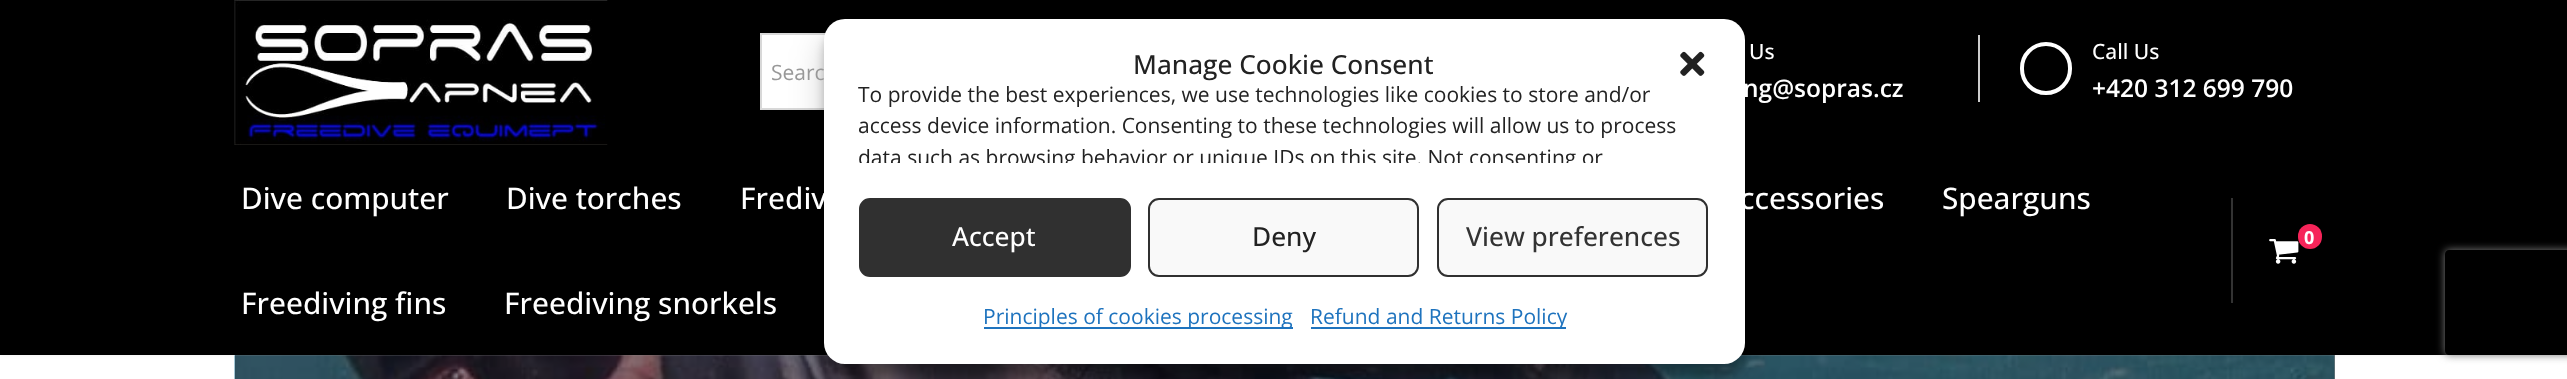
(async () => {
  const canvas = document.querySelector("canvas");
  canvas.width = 2567;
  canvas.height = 379;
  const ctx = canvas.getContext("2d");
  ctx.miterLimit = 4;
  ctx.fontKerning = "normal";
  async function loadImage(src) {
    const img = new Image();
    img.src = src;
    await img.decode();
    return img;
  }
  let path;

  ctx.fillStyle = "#ffffff";
  ctx.fillRect(0, 0, 2567, 379);
  ctx.fillStyle = "rgba(0, 0, 0, 0.1)";
  ctx.filter = "blur(2.5px)";
  ctx.beginPath();
  ctx.rect(0, -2, 2567, 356);
  ctx.fill();
  ctx.filter = "none";
  ctx.fillStyle = "#000000";
  ctx.fillRect(0, 0, 2567, 355);
  ctx.drawImage(await loadImage("img/1.png"), 234, 0, 374, 145);
  ctx.fillStyle = "#ffffff";
  ctx.fillRect(762, 35, 63, 73);
  ctx.strokeStyle = "#d8d8d8";
  ctx.lineWidth = 2;
  ctx.strokeRect(761, 34, 713, 75);
  ctx.fillStyle = "#cccccc";
  ctx.fillRect(1978, 35, 2, 67);
  ctx.beginPath();
  ctx.roundRect(2022, 44, 48, 49, 24);
  ctx.strokeStyle = "#ffffff";
  ctx.lineWidth = 4;
  ctx.stroke();
  ctx.fillStyle = "#333333";
  ctx.fillRect(2231, 198, 2, 105);
  ctx.drawImage(await loadImage("img/2.png"), 2269, 239, 30, 25);
  ctx.fillStyle = "#f62459";
  ctx.beginPath();
  ctx.roundRect(2298, 224, 24, 25, 12);
  ctx.fill();
  ctx.drawImage(await loadImage("img/3.png"), 234, 355, 2101, 24);
  ctx.fillStyle = "rgba(18, 18, 18, 0.5)";
  ctx.fillRect(235, 355, 2100, 24);
  ctx.fillStyle = "rgba(0, 0, 0, 0.23)";
  ctx.filter = "blur(5px)";
  ctx.beginPath();
  ctx.roundRect(824, 30, 921, 345, 21);
  ctx.fill();
  ctx.filter = "none";
  ctx.fillStyle = "rgba(0, 0, 0, 0.19)";
  ctx.filter = "blur(17.5px)";
  ctx.beginPath();
  ctx.roundRect(824, 37, 921, 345, 21);
  ctx.fill();
  ctx.filter = "none";
  ctx.fillStyle = "#ffffff";
  ctx.beginPath();
  ctx.roundRect(824, 19, 921, 345, 21);
  ctx.fill();
  ctx.drawImage(await loadImage("img/4.png"), 1680, 51, 25, 25);
  ctx.fillStyle = "#303030";
  ctx.beginPath();
  ctx.roundRect(860, 199, 270, 77, 10);
  ctx.fill();
  ctx.strokeStyle = "#303030";
  ctx.lineWidth = 2;
  ctx.stroke();
  ctx.fillStyle = "#f9f9f9";
  ctx.beginPath();
  ctx.roundRect(1149, 199, 269, 77, 10);
  ctx.fill();
  ctx.stroke();
  ctx.beginPath();
  ctx.roundRect(1438, 199, 269, 77, 10);
  ctx.fill();
  ctx.stroke();
  ctx.fillStyle = "#1e73be";
  ctx.fillRect(984, 327, 309, 2);
  ctx.fillRect(1311, 327, 255, 2);
  ctx.save();
  path = new Path2D("M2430 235H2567V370H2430ZM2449 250H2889C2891 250 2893 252 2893 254V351C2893 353 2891 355 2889 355H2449C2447 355 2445 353 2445 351V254C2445 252 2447 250 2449 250Z");
  ctx.clip(path, "evenodd");
  ctx.fillStyle = "#808080";
  ctx.filter = "blur(4.5px)";
  ctx.beginPath();
  ctx.roundRect(2445, 250, 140, 105, 4);
  ctx.fill();
  ctx.filter = "none";
  ctx.restore();
  ctx.font = "21px Open Sans";
  ctx.fillStyle = "#989898";
  ctx.fillText("Searc", 771, 80);
  ctx.font = "500 21px Open Sans";
  ctx.fillStyle = "#ffffff";
  ctx.fillText("Us", 1749, 59);
  ctx.font = "600 24.5px Open Sans";
  ctx.fillText("ng@sopras.cz", 1743, 97);
  ctx.font = "500 21px Open Sans";
  ctx.fillText("Call Us", 2092, 59);
  ctx.font = "600 24.5px Open Sans";
  ctx.fillText("+420 312 699 790", 2092, 97);
  ctx.font = "500 29.75px Open Sans";
  for (const [text, x, y] of [
    ["Dive computer", 241, 209],
    ["Dive torches", 506, 209],
    ["Frediv", 740, 209],
    ["ccessories", 1740, 209],
    ["Spearguns", 1942, 209],
    ["Freediving fins", 241, 314],
    ["Freediving snorkels", 504, 314],
  ]) {
    ctx.fillText(text, x, y);
  }
  ctx.font = "bold 18px Open Sans";
  ctx.fillText("0", 2304, 244);
  ctx.font = "500 26.25px Open Sans";
  ctx.fillStyle = "#222222";
  ctx.fillText("Manage Cookie Consent", 1133, 74);
  ctx.font = "21px Open Sans";
  ctx.fillText("To provide the best experiences, we use technologies like cookies to store and/or", 858, 102);
  ctx.fillText("access device information. Consenting to these technologies will allow us to process", 858, 133);
  ctx.save();
  ctx.beginPath();
  ctx.rect(859, 81, 851, 82);
  ctx.clip();
  ctx.fillText("data such as browsing behavior or unique IDs on this site. Not consenting or", 858, 165);
  ctx.restore();
  ctx.font = "500 26.25px Open Sans";
  ctx.fillStyle = "#ffffff";
  ctx.fillText("Accept", 952, 246);
  ctx.fillStyle = "#222222";
  ctx.fillText("Deny", 1252, 246);
  ctx.fillStyle = "#333333";
  ctx.fillText("View preferences", 1466, 246);
  ctx.font = "21px Open Sans";
  ctx.fillStyle = "#1e73be";
  ctx.fillText("Principles of cookies processing", 983, 324);
  ctx.fillText("Refund and Returns Policy", 1310, 324);
})();
